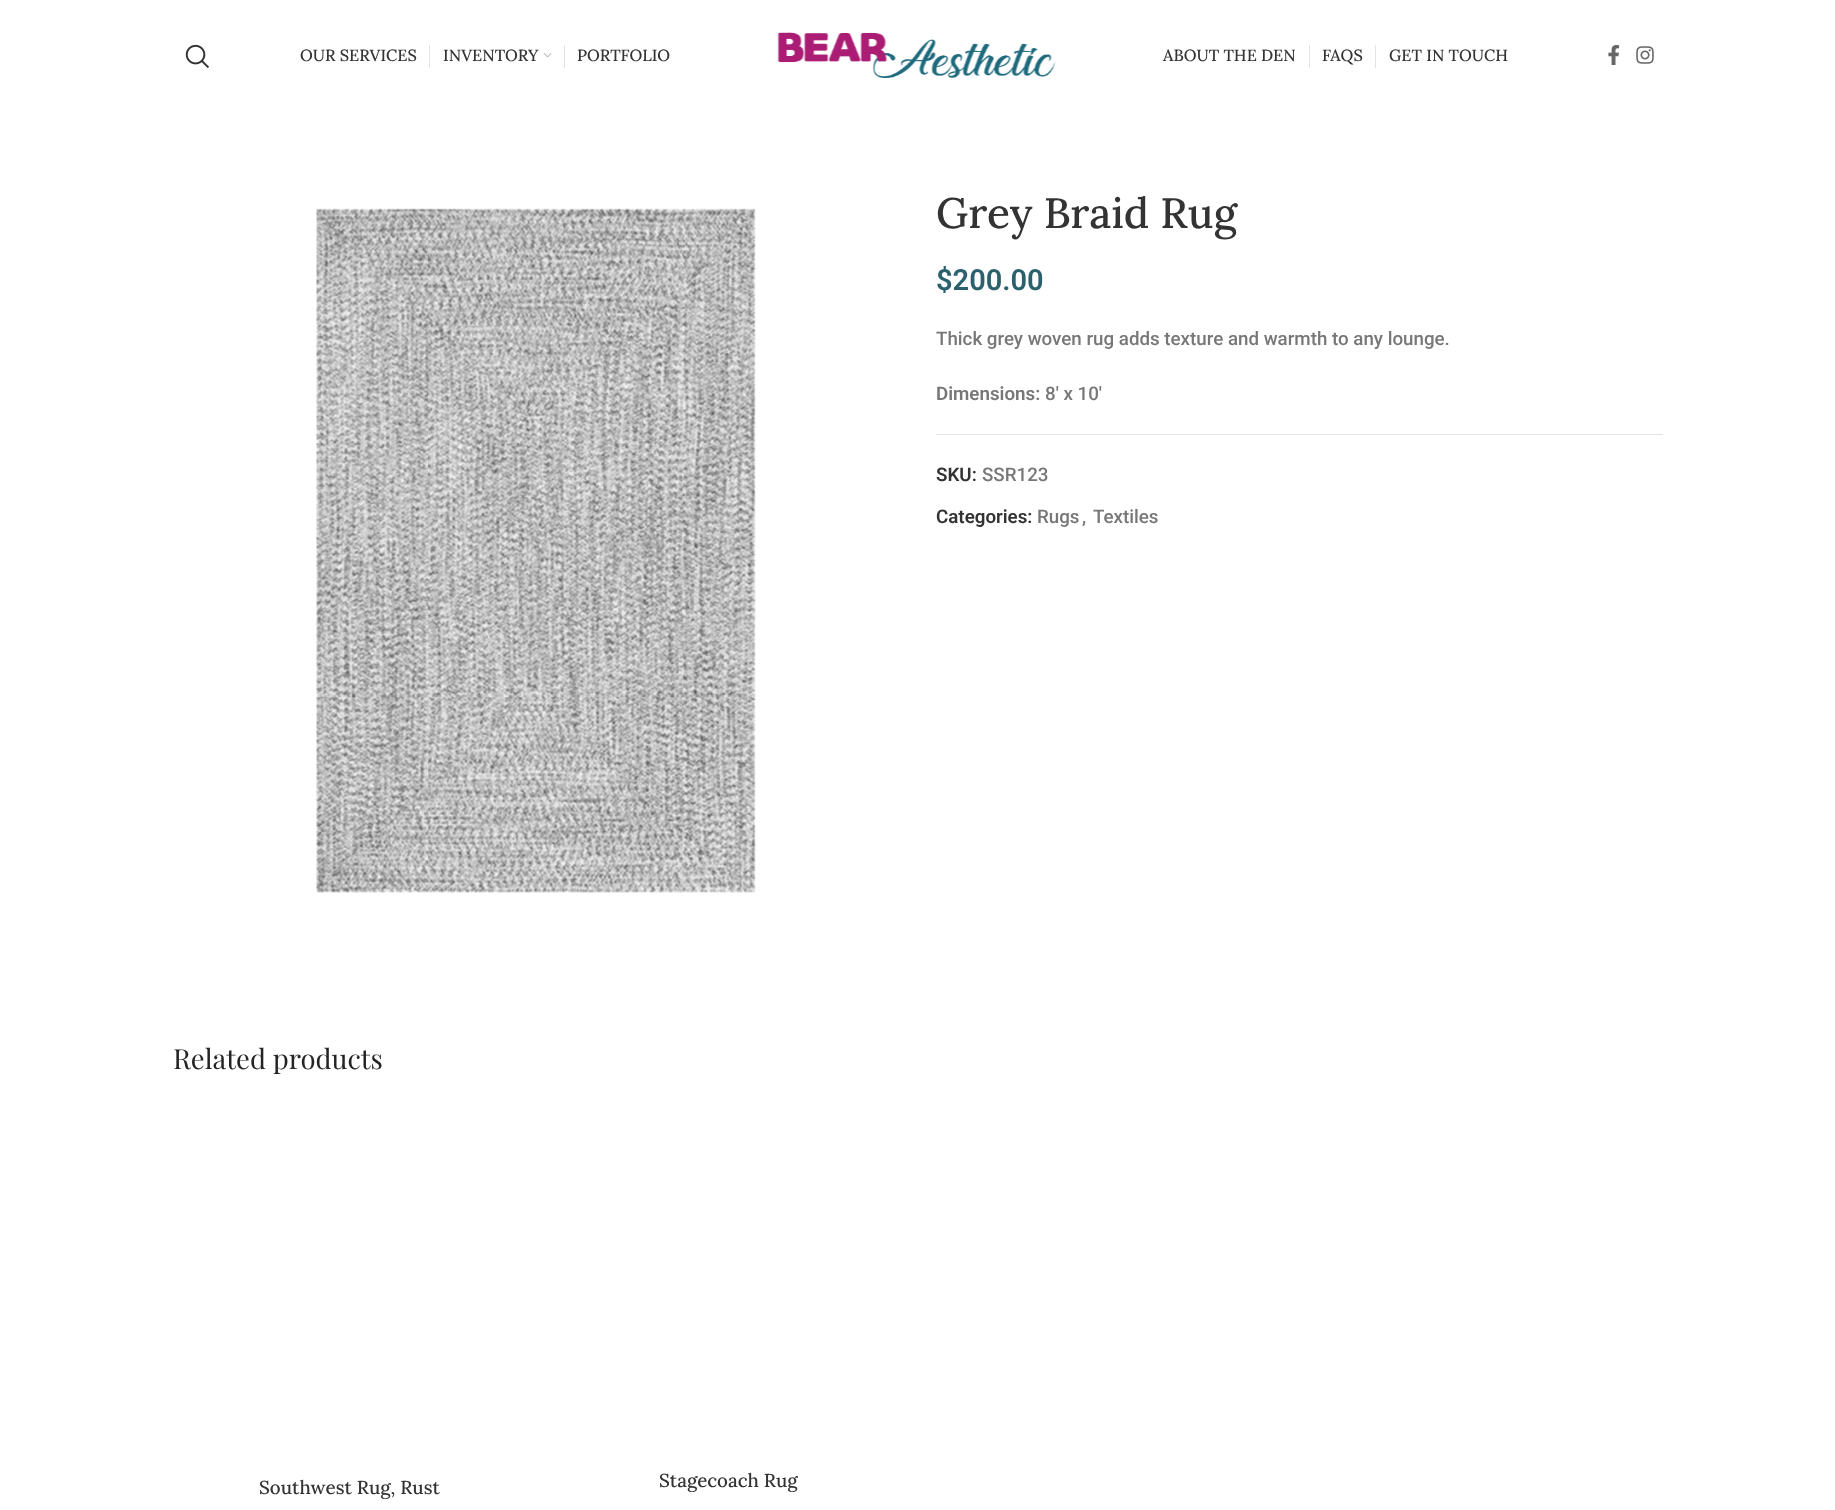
(async () => {
  const canvas = document.querySelector("canvas");
  canvas.width = 1835;
  canvas.height = 1510;
  const ctx = canvas.getContext("2d");
  ctx.miterLimit = 4;
  ctx.fontKerning = "normal";
  async function loadImage(src) {
    const img = new Image();
    img.src = src;
    await img.decode();
    return img;
  }

  ctx.fillStyle = "#ffffff";
  ctx.fillRect(0, 0, 1835, 1510);
  ctx.drawImage(await loadImage("img/1.png"), 185, 44, 24, 25);
  ctx.fillStyle = "#e4e4e4";
  ctx.fillRect(429, 45, 1, 23);
  ctx.drawImage(await loadImage("img/2.png"), 543, 53, 9, 5);
  ctx.fillRect(564, 45, 1, 23);
  ctx.drawImage(await loadImage("img/3.png"), 777, 32, 279, 46);
  ctx.fillRect(1309, 45, 1, 23);
  ctx.fillRect(1375, 45, 1, 23);
  ctx.drawImage(await loadImage("img/4.png"), 1608, 45, 12, 20);
  ctx.drawImage(await loadImage("img/5.png"), 1636, 46, 18, 18);
  ctx.drawImage(await loadImage("img/6.png"), 316, 208, 440, 685);
  ctx.fillRect(936, 434, 727, 1);
  ctx.font = "500 16.25px Lora";
  ctx.fillStyle = "#333333";
  for (const [text, x, y] of [
    ["OUR SERVICES", 300, 61],
    ["INVENTORY", 443, 61],
    ["PORTFOLIO", 577, 61],
    ["ABOUT THE DEN", 1163, 61],
    ["FAQS", 1322, 61],
    ["GET IN TOUCH", 1389, 61],
  ]) {
    ctx.fillText(text, x, y);
  }
  ctx.font = "500 42.5px Lora";
  ctx.fillText("Grey Braid Rug", 936, 228);
  ctx.font = "600 29px Roboto";
  ctx.fillStyle = "#2b616d";
  ctx.fillText("$200.00", 936, 290);
  ctx.font = "500 18.75px Roboto";
  ctx.fillStyle = "#777777";
  ctx.fillText("Thick grey woven rug adds texture and warmth to any lounge.", 936, 345);
  ctx.font = "600 18.75px Roboto";
  ctx.fillText("Dimensions:", 936, 400);
  ctx.font = "500 18.75px Roboto";
  ctx.fillText("8′ x 10′", 1045, 400);
  ctx.font = "600 18.75px Roboto";
  ctx.fillStyle = "#333333";
  ctx.fillText("SKU:", 936, 481);
  ctx.font = "500 18.75px Roboto";
  ctx.fillStyle = "#777777";
  ctx.fillText("SSR123", 982, 481);
  ctx.font = "600 18.75px Roboto";
  ctx.fillStyle = "#333333";
  ctx.fillText("Categories:", 936, 523);
  ctx.font = "500 18.75px Roboto";
  ctx.fillStyle = "#777777";
  for (const [text, x, y] of [
    ["Rugs", 1037, 523],
    [",", 1082, 523],
    ["Textiles", 1093, 523],
  ]) {
    ctx.fillText(text, x, y);
  }
  ctx.font = "27.5px Playfair Display";
  ctx.fillStyle = "#242424";
  ctx.fillText("Related products", 173, 1069);
  ctx.font = "500 18.75px Lora";
  ctx.fillStyle = "#333333";
  ctx.fillText("Southwest Rug, Rust", 259, 1494);
  ctx.fillText("Stagecoach Rug", 659, 1487);
})();
